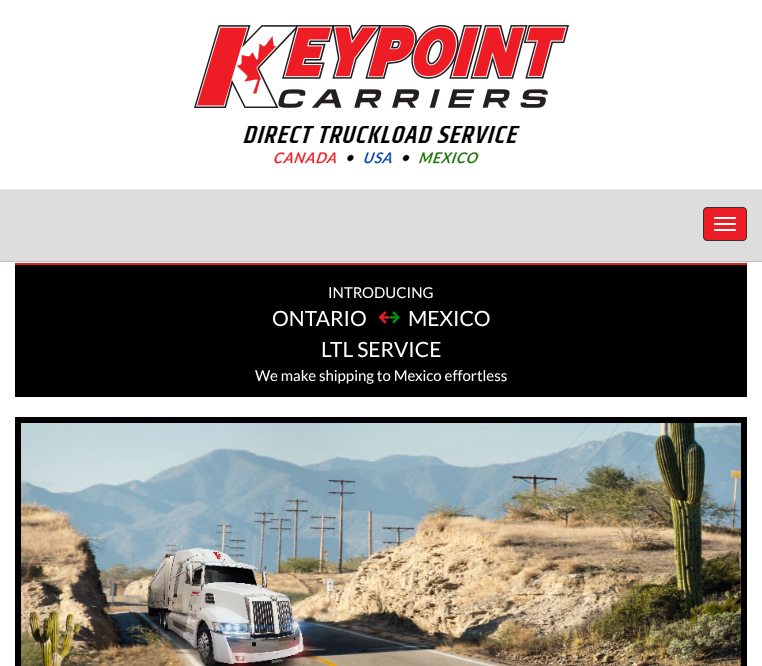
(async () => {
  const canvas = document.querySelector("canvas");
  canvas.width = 762;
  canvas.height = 666;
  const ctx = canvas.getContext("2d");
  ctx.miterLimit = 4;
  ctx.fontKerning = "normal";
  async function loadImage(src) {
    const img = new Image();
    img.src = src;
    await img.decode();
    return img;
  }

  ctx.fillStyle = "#ffffff";
  ctx.fillRect(0, 0, 762, 666);
  ctx.drawImage(await loadImage("img/1.png"), 194, 25, 375, 139);
  for (const [x, y, w, h, color] of [
    [0, 190, 762, 71, "#dddddd"],
    [0, 189, 762, 1, "#e6e6e6"],
    [0, 261, 762, 1, "#c1c1c1"],
  ]) {
    ctx.fillStyle = color;
    ctx.fillRect(x, y, w, h);
  }
  ctx.fillStyle = "#ee1c25";
  ctx.beginPath();
  ctx.roundRect(703.5, 207.5, 43, 33, 3.5);
  ctx.fill();
  ctx.strokeStyle = "#333333";
  ctx.stroke();
  ctx.fillStyle = "#ffffff";
  ctx.beginPath();
  ctx.roundRect(714, 217, 22, 2, 1);
  ctx.fill();
  ctx.beginPath();
  ctx.roundRect(714, 223, 22, 2, 1);
  ctx.fill();
  ctx.beginPath();
  ctx.roundRect(714, 229, 22, 2, 1);
  ctx.fill();
  ctx.fillStyle = "#000000";
  ctx.fillRect(15, 265, 732, 132);
  ctx.fillStyle = "#d91e23";
  ctx.fillRect(15, 263, 732, 2);
  ctx.drawImage(await loadImage("img/2.png"), 378, 311, 22, 13);
  ctx.strokeStyle = "#000000";
  ctx.lineWidth = 6;
  ctx.strokeRect(18, 420, 726, 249);
  ctx.drawImage(await loadImage("img/3.png"), 21, 423, 720, 243);
  ctx.font = "15px Lato";
  ctx.fillStyle = "#ffffff";
  ctx.fillText("INTRODUCING", 328, 298);
  ctx.font = "21px Lato";
  for (const [text, x, y] of [
    ["ONTARIO", 272, 326],
    ["MEXICO", 408, 326],
    ["LTL SERVICE", 321, 357],
  ]) {
    ctx.fillText(text, x, y);
  }
  ctx.font = "15px Lato";
  ctx.fillText("We make shipping to Mexico effortless", 255, 381);
})();
